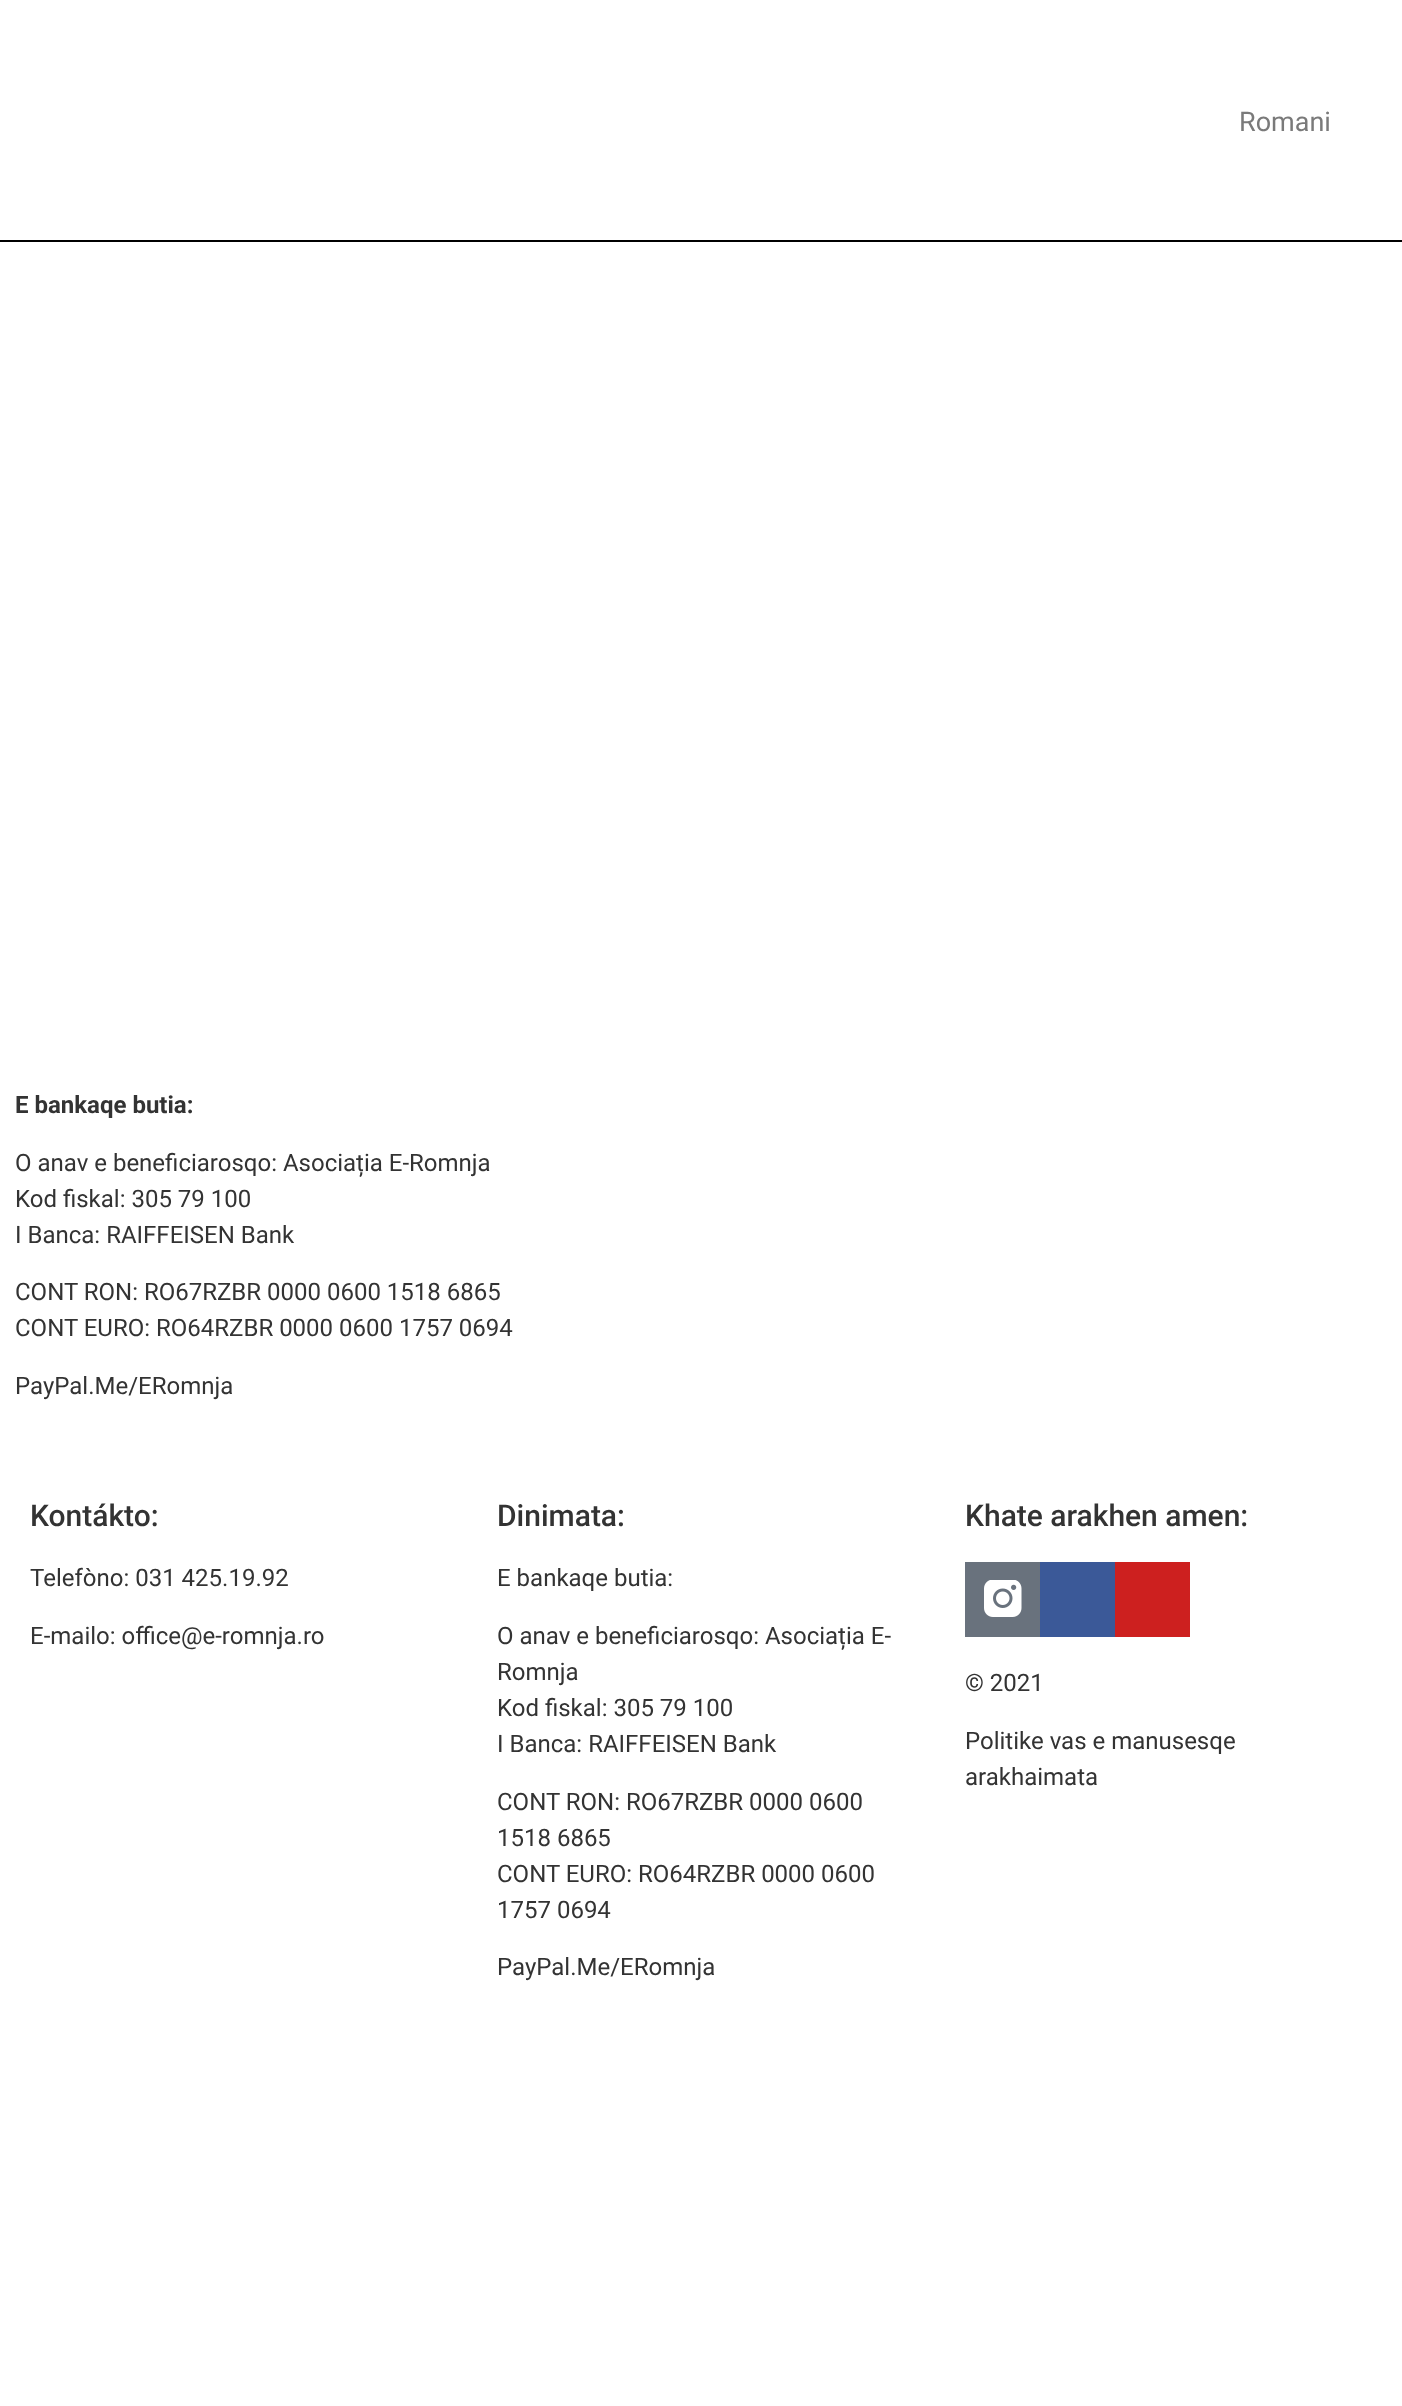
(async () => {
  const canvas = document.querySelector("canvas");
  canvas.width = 1402;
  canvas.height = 2406;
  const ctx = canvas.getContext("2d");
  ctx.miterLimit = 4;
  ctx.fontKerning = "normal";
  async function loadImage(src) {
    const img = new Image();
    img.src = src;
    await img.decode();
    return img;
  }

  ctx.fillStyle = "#ffffff";
  ctx.fillRect(0, 0, 1402, 2406);
  ctx.fillStyle = "#000000";
  ctx.fillRect(0, 240, 1402, 2);
  ctx.fillStyle = "#69727d";
  ctx.fillRect(965, 1562, 75, 75);
  ctx.drawImage(await loadImage("img/1.png"), 984, 1580, 38, 37);
  ctx.fillStyle = "#3b5998";
  ctx.fillRect(1040, 1562, 75, 75);
  ctx.fillStyle = "#cd201f";
  ctx.fillRect(1115, 1562, 75, 75);
  ctx.font = "27px Roboto";
  ctx.fillStyle = "#7a7a7a";
  ctx.fillText("Romani", 1239, 131);
  ctx.font = "bold 24px Roboto";
  ctx.fillStyle = "#333333";
  ctx.fillText("E bankaqe butia:", 15, 1113);
  ctx.font = "24px Roboto";
  for (const [text, x, y] of [
    ["O anav e beneficiarosqo: Asociația E-Romnja", 15, 1171],
    ["Kod fiskal: 305 79 100", 15, 1207],
    ["I Banca: RAIFFEISEN Bank", 15, 1243],
    ["CONT RON: RO67RZBR 0000 0600 1518 6865", 15, 1300],
    ["CONT EURO: RO64RZBR 0000 0600 1757 0694", 15, 1336],
    ["PayPal.Me/ERomnja", 15, 1394],
  ]) {
    ctx.fillText(text, x, y);
  }
  ctx.font = "500 30px Roboto";
  ctx.fillText("Kontákto:", 30, 1526);
  ctx.font = "24px Roboto";
  ctx.fillText("Telefòno: 031 425.19.92", 30, 1586);
  ctx.fillText("E-mailo: office@e-romnja.ro", 30, 1644);
  ctx.font = "500 30px Roboto";
  ctx.fillText("Dinimata:", 497, 1526);
  ctx.font = "24px Roboto";
  for (const [text, x, y] of [
    ["E bankaqe butia:", 497, 1586],
    ["O anav e beneficiarosqo: Asociația E-", 497, 1644],
    ["Romnja", 497, 1680],
    ["Kod fiskal: 305 79 100", 497, 1716],
    ["I Banca: RAIFFEISEN Bank", 497, 1752],
    ["CONT RON: RO67RZBR 0000 0600", 497, 1810],
    ["1518 6865", 497, 1846],
    ["CONT EURO: RO64RZBR 0000 0600", 497, 1882],
    ["1757 0694", 497, 1918],
    ["PayPal.Me/ERomnja", 497, 1975],
  ]) {
    ctx.fillText(text, x, y);
  }
  ctx.font = "500 30px Roboto";
  ctx.fillText("Khate arakhen amen:", 965, 1526);
  ctx.font = "24px Roboto";
  for (const [text, x, y] of [
    ["© 2021", 965, 1691],
    ["Politike vas e manusesqe", 965, 1749],
    ["arakhaimata", 965, 1785],
  ]) {
    ctx.fillText(text, x, y);
  }
})();
